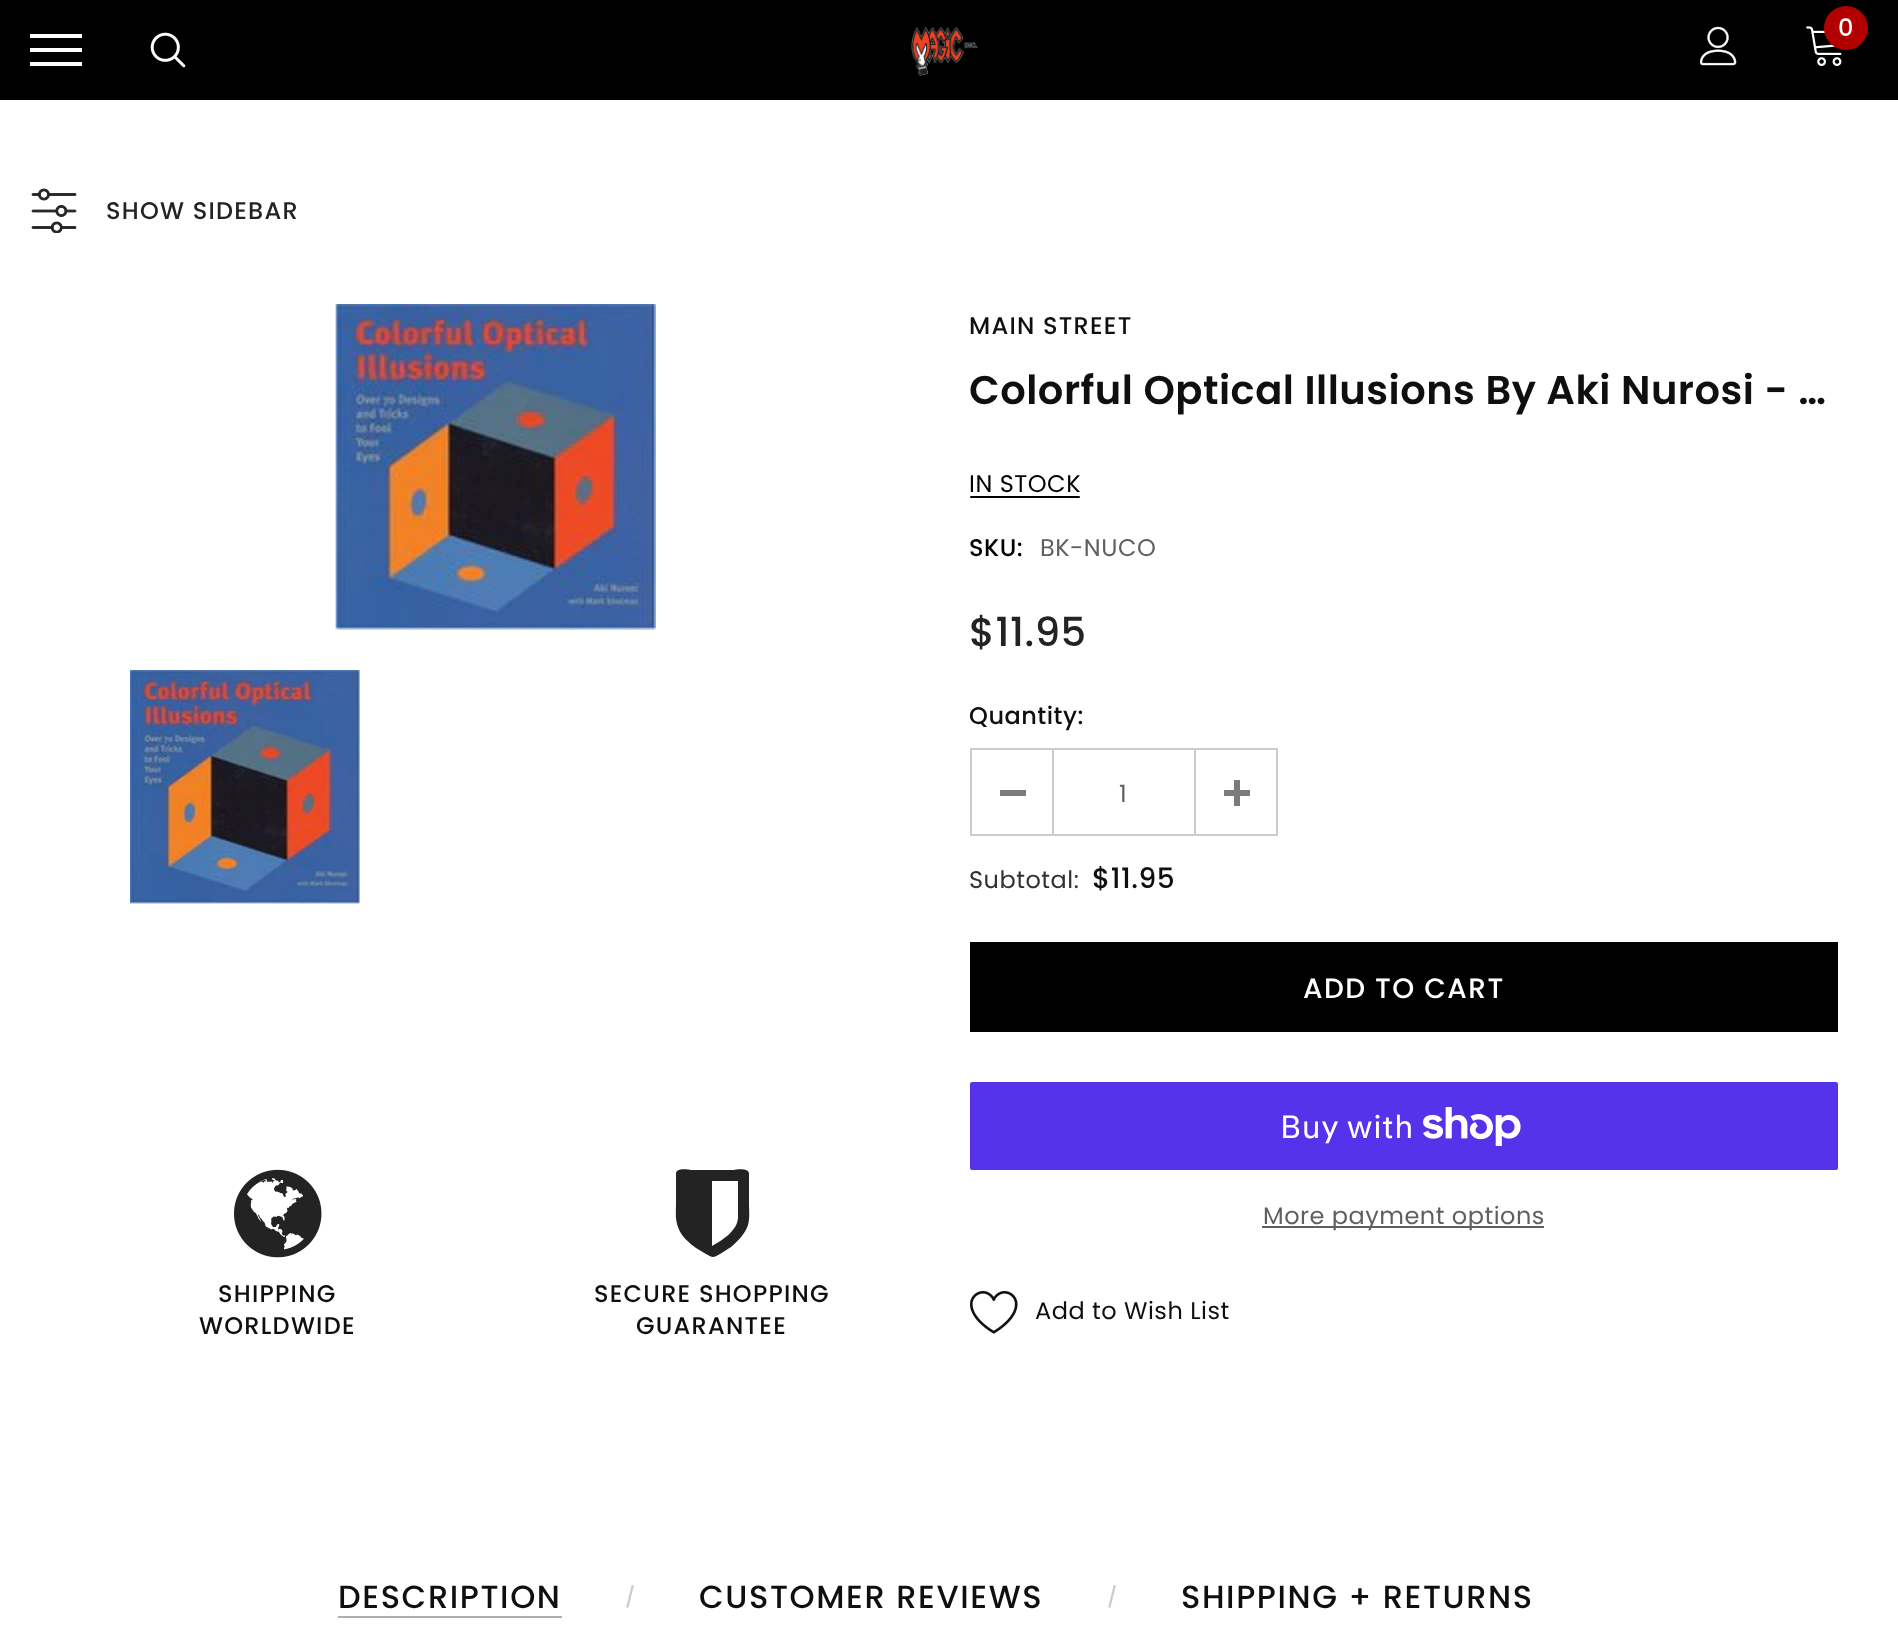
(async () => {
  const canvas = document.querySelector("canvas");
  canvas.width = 1898;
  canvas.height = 1637;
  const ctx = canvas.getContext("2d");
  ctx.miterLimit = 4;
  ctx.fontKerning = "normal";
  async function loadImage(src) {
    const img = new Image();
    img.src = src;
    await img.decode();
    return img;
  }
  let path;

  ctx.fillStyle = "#ffffff";
  ctx.fillRect(0, 0, 1898, 1637);
  for (const [x, y, w, h, color] of [
    [0, 0, 1898, 100, "#000000"],
    [30, 48, 52, 4, "#ffffff"],
    [30, 34, 52, 4, "#ffffff"],
    [30, 62, 52, 4, "#ffffff"],
  ]) {
    ctx.fillStyle = color;
    ctx.fillRect(x, y, w, h);
  }
  ctx.drawImage(await loadImage("img/1.png"), 150, 32, 36, 36);
  ctx.drawImage(await loadImage("img/2.png"), 911, 27, 67, 49);
  ctx.drawImage(await loadImage("img/3.png"), 1700, 26, 37, 40);
  ctx.drawImage(await loadImage("img/4.png"), 1806, 26, 36, 40);
  ctx.fillStyle = "#b20000";
  ctx.beginPath();
  ctx.arc(1846, 28, 22, 0, Math.PI * 2);
  ctx.fill();
  ctx.drawImage(await loadImage("img/5.png"), 31, 188, 46, 45);
  ctx.drawImage(await loadImage("img/6.png"), 335, 304, 321, 326);
  ctx.drawImage(await loadImage("img/7.png"), 130, 670, 230, 234);
  ctx.drawImage(await loadImage("img/8.png"), 234, 1169, 88, 89);
  ctx.fillStyle = "#232323";
  path = new Path2D("M738 1217V1181H712V1246C723 1240 738 1230 738 1217ZM749 1174V1203C749 1210 750 1218 748 1225C745 1234 738 1241 731 1247L720 1254C713 1258 713 1258 706 1254L696 1248C688 1242 681 1236 678 1227C675 1219 676 1211 676 1203V1174C676 1167 689 1170 691 1170H734C735 1170 749 1167 749 1174Z");
  ctx.fill(path);
  ctx.fillStyle = "#000000";
  ctx.beginPath();
  ctx.roundRect(970, 496, 110, 2, 1);
  ctx.fill();
  ctx.strokeStyle = "#cbcbcb";
  ctx.lineWidth = 2;
  ctx.strokeRect(971, 749, 306, 86);
  for (const [x, y, w, h, color] of [
    [1052, 750, 2, 84, "#cbcbcb"],
    [1000, 790, 26, 6, "#7b7b7b"],
    [1194, 750, 2, 84, "#cbcbcb"],
    [1224, 790, 26, 6, "#7b7b7b"],
    [1234, 780, 6, 26, "#7b7b7b"],
    [970, 942, 868, 90, "#000000"],
  ]) {
    ctx.fillStyle = color;
    ctx.fillRect(x, y, w, h);
  }
  ctx.fillStyle = "#5433eb";
  ctx.beginPath();
  ctx.roundRect(970, 1082, 868, 88, 2);
  ctx.fill();
  ctx.drawImage(await loadImage("img/9.png"), 1423, 1107, 98, 39);
  ctx.fillStyle = "#5f5f5f";
  ctx.fillRect(1262, 1226, 282, 2);
  ctx.drawImage(await loadImage("img/10.png"), 970, 1290, 48, 44);
  ctx.fillStyle = "#afafaf";
  ctx.fillRect(338, 1616, 224, 2);
  ctx.letterSpacing = "0.5px";
  ctx.font = "500 24px Poppins";
  ctx.fillStyle = "#ffffff";
  ctx.fillText("0", 1838, 36);
  ctx.letterSpacing = "1.25px";
  ctx.fillStyle = "#232323";
  ctx.fillText("SHOW SIDEBAR", 106, 219);
  ctx.fillStyle = "#0f0f0f";
  for (const [text, x, y] of [
    ["SHIPPING", 218, 1302],
    ["WORLDWIDE", 199, 1334],
    ["SECURE SHOPPING", 594, 1302],
    ["GUARANTEE", 636, 1334],
    ["MAIN STREET", 969, 334],
  ]) {
    ctx.fillText(text, x, y);
  }
  ctx.letterSpacing = "0.5px";
  ctx.font = "600 40px Poppins";
  ctx.fillText("Colorful Optical Illusions By Aki Nurosi - …", 969, 404);
  ctx.font = "24px Poppins";
  ctx.fillStyle = "#000000";
  ctx.fillText("IN STOCK", 969, 492);
  ctx.font = "500 24px Poppins";
  ctx.fillText("SKU:", 969, 556);
  ctx.font = "24px Poppins";
  ctx.fillStyle = "#5f5f5f";
  ctx.fillText("BK-NUCO", 1040, 556);
  ctx.font = "500 40px Poppins";
  ctx.fillStyle = "#232323";
  ctx.fillText("$11.95", 969, 646);
  ctx.font = "500 24px Poppins";
  ctx.fillStyle = "#0f0f0f";
  ctx.fillText("Quantity:", 969, 724);
  ctx.letterSpacing = "0px";
  ctx.font = "24px Poppins";
  ctx.fillStyle = "#5f5f5f";
  ctx.fillText("1", 1119, 802);
  ctx.letterSpacing = "0.5px";
  ctx.fillStyle = "#313131";
  ctx.fillText("Subtotal:", 969, 888);
  ctx.font = "500 28px Poppins";
  ctx.fillStyle = "#0f0f0f";
  ctx.fillText("$11.95", 1092, 888);
  ctx.letterSpacing = "1.4px";
  ctx.fillStyle = "#ffffff";
  ctx.fillText("ADD TO CART", 1303, 998);
  ctx.letterSpacing = "0.5px";
  ctx.font = "32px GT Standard";
  ctx.fillText("Buy with", 1280, 1138);
  ctx.font = "24px Poppins";
  ctx.fillStyle = "#5f5f5f";
  ctx.fillText("More payment options", 1263, 1224);
  ctx.fillStyle = "#0f0f0f";
  ctx.fillText("Add to Wish List", 1035, 1319);
  ctx.letterSpacing = "1.6px";
  ctx.font = "500 32px Poppins";
  ctx.fillText("DESCRIPTION", 338, 1608);
  ctx.font = "500 20px Poppins";
  ctx.fillStyle = "#cbcbcb";
  ctx.fillText("/", 625, 1604);
  ctx.font = "500 32px Poppins";
  ctx.fillStyle = "#0f0f0f";
  ctx.fillText("CUSTOMER REVIEWS", 699, 1608);
  ctx.font = "500 20px Poppins";
  ctx.fillStyle = "#cbcbcb";
  ctx.fillText("/", 1107, 1604);
  ctx.font = "500 32px Poppins";
  ctx.fillStyle = "#0f0f0f";
  ctx.fillText("SHIPPING + RETURNS", 1181, 1608);
})();
